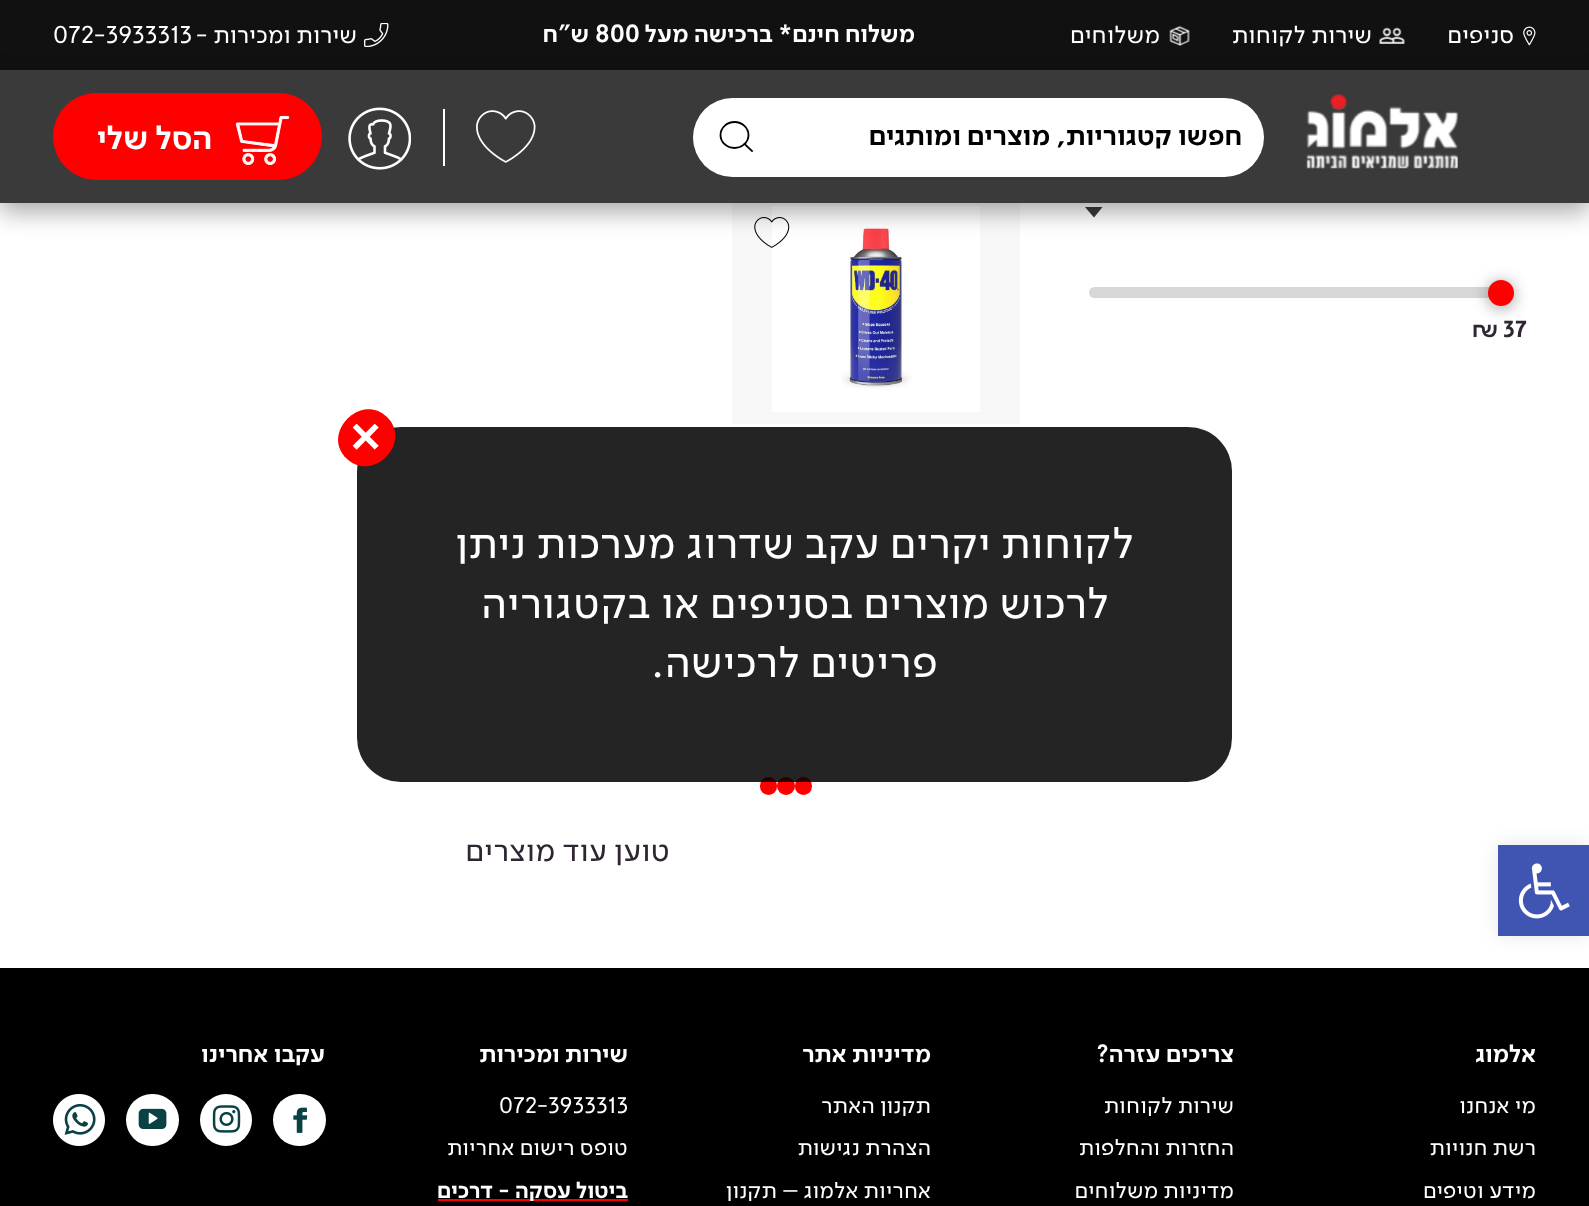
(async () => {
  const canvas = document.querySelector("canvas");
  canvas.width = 1589;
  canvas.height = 1206;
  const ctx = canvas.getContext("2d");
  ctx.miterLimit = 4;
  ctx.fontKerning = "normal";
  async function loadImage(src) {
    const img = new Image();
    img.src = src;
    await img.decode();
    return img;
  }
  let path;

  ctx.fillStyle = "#ffffff";
  ctx.fillRect(0, 0, 1589, 1206);
  ctx.fillStyle = "#3a3a3a";
  path = new Path2D("M1085 207H1102.5L1094 217.5Z");
  ctx.fill(path);
  ctx.fillStyle = "#f8f8f8";
  ctx.fillRect(732, 203, 288, 221);
  ctx.drawImage(await loadImage("img/9.png"), 772, 206, 208, 206);
  ctx.drawImage(await loadImage("img/10.png"), 754, 217, 36, 31);
  ctx.fillStyle = "rgba(0, 0, 0, 0.2)";
  ctx.filter = "blur(13px)";
  ctx.beginPath();
  ctx.rect(0, 7, 1589, 203);
  ctx.fill();
  ctx.filter = "none";
  ctx.fillStyle = "#3a3a3a";
  ctx.fillRect(0, 70, 1589, 133);
  ctx.fillStyle = "#111111";
  ctx.fillRect(0, 0, 1589, 70);
  ctx.drawImage(await loadImage("img/1.png"), 1523, 26, 13, 20);
  ctx.drawImage(await loadImage("img/2.png"), 1379, 27, 26, 17);
  ctx.drawImage(await loadImage("img/3.png"), 1169, 25, 21, 21);
  ctx.drawImage(await loadImage("img/4.png"), 364, 23, 25, 24);
  ctx.save();
  path = new Path2D("M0 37H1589V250H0ZM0 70H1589V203H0Z");
  ctx.clip(path, "evenodd");
  ctx.fillStyle = "rgba(0, 0, 0, 0.2)";
  ctx.filter = "blur(13px)";
  ctx.beginPath();
  ctx.rect(0, 77, 1589, 133);
  ctx.fill();
  ctx.filter = "none";
  ctx.restore();
  ctx.drawImage(await loadImage("img/5.png"), 1306, 93, 152, 76);
  ctx.fillStyle = "#ffffff";
  ctx.beginPath();
  ctx.roundRect(693, 98, 571, 79, 39.5);
  ctx.fill();
  ctx.beginPath();
  ctx.ellipse(734.5, 135, 14, 13, 0, 0, Math.PI * 2);
  ctx.strokeStyle = "#000000";
  ctx.lineWidth = 1.8;
  ctx.stroke();
  path = new Path2D("M744.5 144L752 151");
  ctx.lineCap = "square";
  ctx.stroke(path);
  ctx.drawImage(await loadImage("img/6.png"), 476, 110, 60, 53);
  ctx.fillRect(443, 109, 2, 57);
  ctx.drawImage(await loadImage("img/7.png"), 348, 107, 63, 63);
  ctx.fillStyle = "#ff0000";
  ctx.beginPath();
  ctx.roundRect(53, 93, 269, 87, 43.5);
  ctx.fill();
  ctx.drawImage(await loadImage("img/8.png"), 235, 115, 55, 50);
  ctx.fillStyle = "#d7d7d7";
  ctx.beginPath();
  ctx.roundRect(1089, 287, 425, 11, 5.5);
  ctx.fill();
  ctx.fillStyle = "rgba(0, 0, 0, 0.2)";
  ctx.filter = "blur(8px)";
  ctx.beginPath();
  ctx.roundRect(1488, 282, 26, 26, 13);
  ctx.fill();
  ctx.filter = "none";
  ctx.filter = "blur(8px)";
  ctx.beginPath();
  ctx.roundRect(1488, 282, 26, 26, 13);
  ctx.fill();
  ctx.filter = "none";
  ctx.fillStyle = "#ff0000";
  ctx.beginPath();
  ctx.arc(1501, 293, 13, 0, Math.PI * 2);
  ctx.fill();
  ctx.beginPath();
  ctx.roundRect(795, 777, 17, 18, 8.5);
  ctx.fill();
  ctx.beginPath();
  ctx.arc(786, 786, 9, 0, Math.PI * 2);
  ctx.fill();
  ctx.beginPath();
  ctx.roundRect(760, 777, 17, 18, 8.5);
  ctx.fill();
  ctx.fillStyle = "#000000";
  ctx.fillRect(0, 968, 1589, 238);
  ctx.fillStyle = "#ff0000";
  ctx.fillRect(438, 1199, 190, 2);
  ctx.fillStyle = "#ffffff";
  ctx.beginPath();
  ctx.roundRect(273, 1094, 53, 52, 26);
  ctx.fill();
  ctx.drawImage(await loadImage("img/11.png"), 293, 1107, 15, 26);
  ctx.beginPath();
  ctx.arc(226, 1120, 26, 0, Math.PI * 2);
  ctx.fill();
  ctx.drawImage(await loadImage("img/12.png"), 212, 1105, 29, 28);
  ctx.beginPath();
  ctx.roundRect(126, 1094, 53, 52, 26);
  ctx.fill();
  ctx.drawImage(await loadImage("img/13.png"), 138, 1108, 29, 21);
  ctx.drawImage(await loadImage("img/14.png"), 53, 1094, 52, 52);
  ctx.fillStyle = "rgba(0, 0, 0, 0.86)";
  ctx.beginPath();
  ctx.roundRect(357, 427, 875, 355, 44);
  ctx.fill();
  ctx.fillStyle = "#ff0000";
  path = new Path2D("M387 417C413 443 372 484 346 458C321 433 361 392 387 417Z");
  ctx.fill(path);
  ctx.fillStyle = "rgba(0, 0, 0, 0.1)";
  ctx.filter = "blur(9px)";
  ctx.beginPath();
  ctx.rect(1498, 845, 91, 91);
  ctx.fill();
  ctx.filter = "none";
  ctx.fillStyle = "#4054b2";
  ctx.fillRect(1498, 845, 91, 91);
  ctx.drawImage(await loadImage("img/15.png"), 1518, 863, 52, 56);
  ctx.direction = "rtl";
  ctx.font = "24.5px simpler";
  ctx.fillStyle = "#ffffff";
  for (const [text, x, y] of [
    ["סניפים", 1514, 43],
    ["שירות לקוחות", 1372, 43],
    ["משלוחים", 1160, 43],
  ]) {
    ctx.fillText(text, x, y);
  }
  ctx.font = "24.5px 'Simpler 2'";
  ctx.fillText("משלוח חינם* ברכישה מעל", 915, 42);
  ctx.direction = "ltr";
  ctx.fillText("800", 595, 42);
  ctx.direction = "rtl";
  ctx.fillText("ש\"ח", 589, 42);
  ctx.font = "24.5px simpler";
  ctx.fillText("שירות ומכירות -", 357, 43);
  ctx.direction = "ltr";
  ctx.fillText("072-3933313", 53, 43);
  ctx.direction = "rtl";
  ctx.font = "28px 'Simpler 2'";
  ctx.fillStyle = "#000000";
  ctx.fillText("חפשו קטגוריות, מוצרים ומותגים", 1242, 145);
  ctx.font = "33px 'Simpler 2'";
  ctx.fillStyle = "#ffffff";
  ctx.fillText("הסל שלי", 212, 149);
  ctx.direction = "ltr";
  ctx.font = "22.75px 'Simpler 2'";
  ctx.fillStyle = "#2f2533";
  ctx.fillText("₪ 37", 1472, 337);
  ctx.direction = "rtl";
  ctx.font = "31.5px simpler";
  ctx.fillText("טוען עוד מוצרים", 670, 861);
  ctx.font = "24.5px 'Simpler 2'";
  ctx.fillStyle = "#ffffff";
  ctx.fillText("אלמוג", 1536, 1062);
  ctx.font = "22.75px simpler";
  for (const [text, x, y] of [
    ["מי אנחנו", 1536, 1113],
    ["רשת חנויות", 1536, 1155],
    ["מידע וטיפים", 1536, 1198],
  ]) {
    ctx.fillText(text, x, y);
  }
  ctx.font = "24.5px 'Simpler 2'";
  ctx.fillText("צריכים עזרה?", 1234, 1062);
  ctx.font = "22.75px simpler";
  for (const [text, x, y] of [
    ["שירות לקוחות", 1234, 1113],
    ["החזרות והחלפות", 1234, 1155],
    ["מדיניות משלוחים", 1234, 1198],
  ]) {
    ctx.fillText(text, x, y);
  }
  ctx.font = "24.5px 'Simpler 2'";
  ctx.fillText("מדיניות אתר", 931, 1062);
  ctx.font = "22.75px simpler";
  for (const [text, x, y] of [
    ["תקנון האתר", 931, 1113],
    ["הצהרת נגישות", 931, 1155],
    ["אחריות אלמוג – תקנון", 931, 1198],
  ]) {
    ctx.fillText(text, x, y);
  }
  ctx.font = "24.5px 'Simpler 2'";
  ctx.fillText("שירות ומכירות", 628, 1062);
  ctx.direction = "ltr";
  ctx.font = "22.75px simpler";
  ctx.fillText("072-3933313", 499, 1113);
  ctx.direction = "rtl";
  ctx.fillText("טופס רישום אחריות", 628, 1155);
  ctx.font = "22.75px 'Simpler 2'";
  ctx.fillText("ביטול עסקה - דרכים", 628, 1198);
  ctx.font = "24.5px 'Simpler 2'";
  ctx.fillText("עקבו אחרינו", 325, 1062);
  ctx.direction = "ltr";
  ctx.font = "52px 'Simpler 2'";
  ctx.save();
  ctx.translate(338, 435);
  ctx.rotate(45 * Math.PI / 180);
  ctx.fillText("+", 0, 0);
  ctx.restore();
  ctx.direction = "rtl";
  ctx.font = "44.1px simpler";
  for (const [text, x, y] of [
    ["לקוחות יקרים עקב שדרוג מערכות", 1134, 558],
    ["ניתן", 526, 558],
    ["לרכוש מוצרים בסניפים או בקטגוריה", 1109, 618],
    ["פריטים לרכישה.", 938, 677],
  ]) {
    ctx.fillText(text, x, y);
  }
})();
